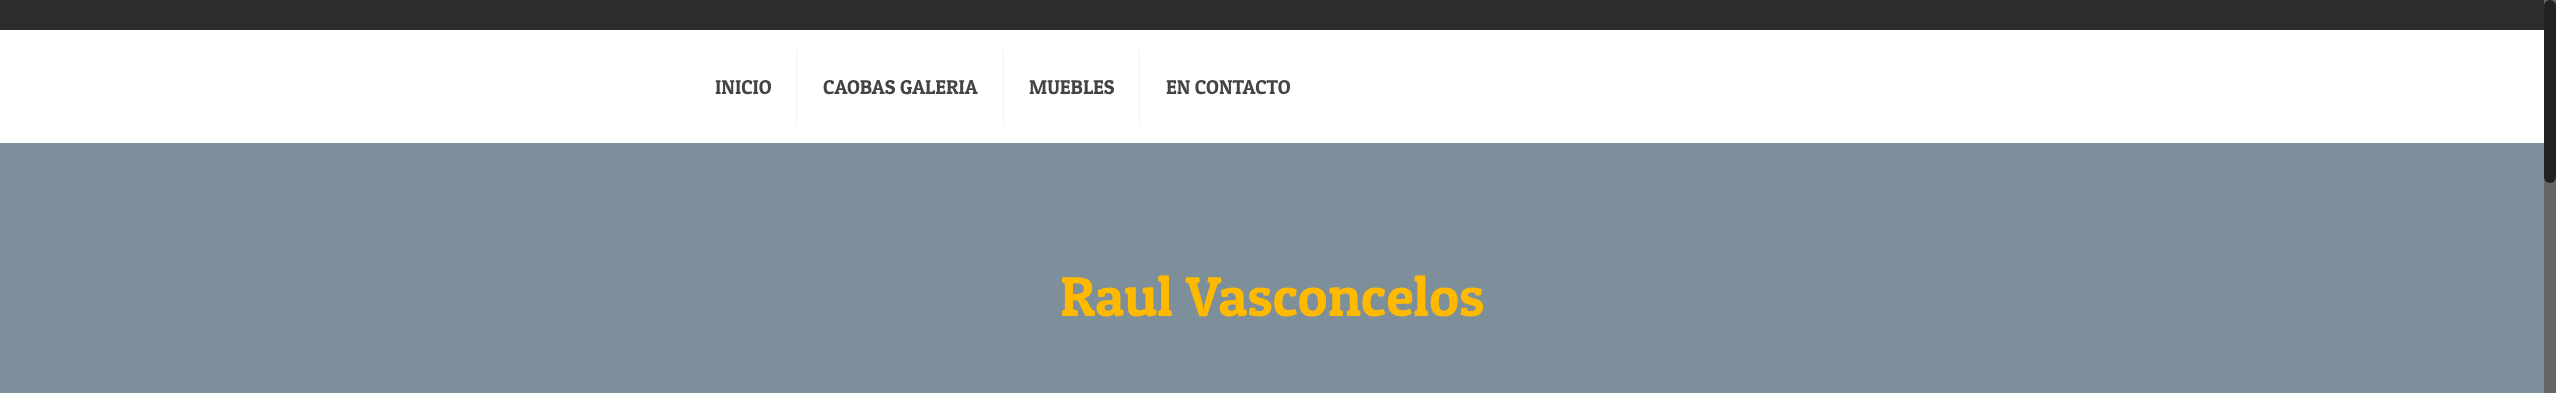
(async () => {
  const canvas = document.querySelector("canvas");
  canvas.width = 2556;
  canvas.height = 393;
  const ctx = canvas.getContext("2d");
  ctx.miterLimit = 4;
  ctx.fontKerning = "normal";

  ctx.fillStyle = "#7e8f9c";
  ctx.fillRect(0, 0, 2556, 393);
  for (const [x, y, w, h, color] of [
    [0, 0, 2544, 30, "#2c2c2c"],
    [0, 30, 2544, 113, "#ffffff"],
    [796, 49, 1, 75, "#f2f2f2"],
    [1003, 49, 1, 75, "#f2f2f2"],
    [1139, 49, 1, 75, "#f2f2f2"],
    [2544, 0, 12, 393, "#666666"],
  ]) {
    ctx.fillStyle = color;
    ctx.fillRect(x, y, w, h);
  }
  ctx.fillStyle = "#222222";
  ctx.beginPath();
  ctx.roundRect(2544, 0, 12, 183, 6);
  ctx.fill();
  ctx.font = "20px Patua One";
  ctx.fillStyle = "#444444";
  for (const [text, x, y] of [
    ["INICIO", 715, 94],
    ["CAOBAS GALERIA", 823, 94],
    ["MUEBLES", 1029, 94],
    ["EN CONTACTO", 1166, 94],
  ]) {
    ctx.fillText(text, x, y);
  }
  ctx.font = "56.25px Patua One";
  ctx.fillStyle = "#ffba00";
  ctx.fillText("Raul Vasconcelos", 1060, 316);
})();
